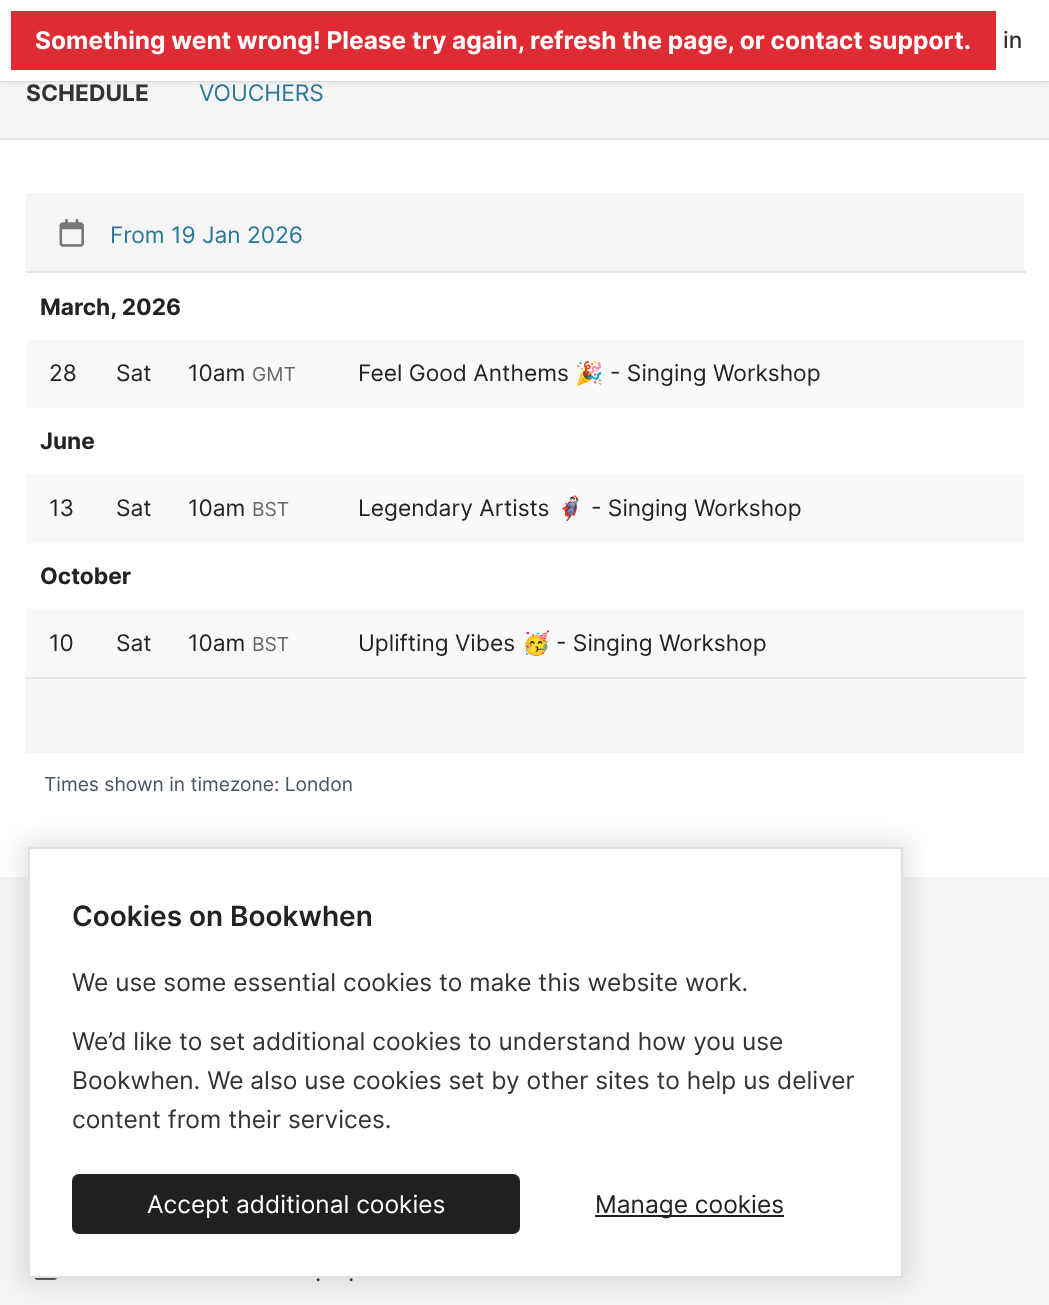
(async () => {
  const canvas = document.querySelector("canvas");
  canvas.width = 1049;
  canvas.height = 1305;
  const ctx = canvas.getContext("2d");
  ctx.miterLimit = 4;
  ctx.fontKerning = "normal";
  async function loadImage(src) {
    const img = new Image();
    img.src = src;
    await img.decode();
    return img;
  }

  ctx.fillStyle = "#ffffff";
  ctx.fillRect(0, 0, 1049, 1305);
  ctx.fillStyle = "#f5f5f5";
  ctx.fillRect(0, 81, 1049, 57);
  ctx.fillStyle = "rgba(50, 50, 50, 0.1)";
  ctx.filter = "blur(5px)";
  ctx.beginPath();
  ctx.rect(0, 2, 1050, 80);
  ctx.fill();
  ctx.filter = "none";
  for (const [x, y, w, h, color] of [
    [0, 0, 1049, 81, "#ffffff"],
    [11, 11, 985, 59, "#de2b34"],
    [0, 81, 1049, 1, "rgba(100, 100, 100, 0.1)"],
    [0, 138, 1049, 2, "#e6e6e6"],
    [26, 193, 998, 78, "#f5f5f5"],
    [26, 271, 1000, 2, "#e6e6e6"],
  ]) {
    ctx.fillStyle = color;
    ctx.fillRect(x, y, w, h);
  }
  ctx.drawImage(await loadImage("img/1.png"), 59, 218, 25, 29);
  for (const [x, y, w, h, color] of [
    [26, 340, 998, 68, "#f9f9f9"],
    [26, 474, 998, 69, "#f9f9f9"],
    [26, 609, 998, 68, "#f9f9f9"],
    [26, 679, 998, 74, "#f5f5f5"],
    [26, 677, 1000, 2, "#e6e6e6"],
    [0, 877, 1049, 428, "#f5f5f5"],
  ]) {
    ctx.fillStyle = color;
    ctx.fillRect(x, y, w, h);
  }
  ctx.drawImage(await loadImage("img/2.png"), 34, 1278, 23, 2);
  ctx.fillStyle = "rgba(0, 0, 0, 0.1)";
  ctx.filter = "blur(10.5px)";
  ctx.beginPath();
  ctx.rect(21, 840, 889, 445);
  ctx.fill();
  ctx.filter = "none";
  ctx.fillStyle = "#ffffff";
  ctx.beginPath();
  ctx.rect(29, 848, 873, 429);
  ctx.fill();
  ctx.strokeStyle = "#e1e1e1";
  ctx.lineWidth = 2;
  ctx.stroke();
  ctx.fillStyle = "#1e2022";
  ctx.beginPath();
  ctx.roundRect(72, 1174, 448, 60, 7);
  ctx.fill();
  ctx.fillRect(595, 1215, 189, 2);
  ctx.font = "bold 24.5px Inter";
  ctx.fillStyle = "#ffffff";
  ctx.fillText("Something went wrong! Please try again, refresh the page, or contact support.", 35, 49);
  ctx.font = "500 22.75px Inter";
  ctx.fillStyle = "#333333";
  ctx.fillText("in", 1003, 48);
  ctx.font = "bold 22.75px Inter";
  ctx.fillText("SCHEDULE", 26, 101);
  ctx.font = "22.75px Inter";
  ctx.fillStyle = "#297799";
  ctx.fillText("VOUCHERS", 199, 101);
  ctx.fillText("From 19 Jan 2026", 110, 243);
  ctx.font = "bold 22.75px Inter";
  ctx.fillStyle = "#222222";
  ctx.fillText("March, 2026", 40, 315);
  ctx.font = "22.75px Inter";
  for (const [text, x, y] of [
    ["28", 49, 381],
    ["Sat", 116, 381],
    ["10am", 188, 381],
  ]) {
    ctx.fillText(text, x, y);
  }
  ctx.font = "19.25px Inter";
  ctx.fillStyle = "#666666";
  ctx.fillText("GMT", 252, 381);
  ctx.font = "22.75px Inter";
  ctx.fillStyle = "#222222";
  ctx.fillText("Feel Good Anthems", 358, 381);
  ctx.font = "22.75px Noto Color Emoji";
  ctx.fillText("🎉", 575, 381);
  ctx.font = "22.75px Inter";
  ctx.fillText("- Singing Workshop", 610, 381);
  ctx.font = "bold 22.75px Inter";
  ctx.fillText("June", 40, 449);
  ctx.font = "22.75px Inter";
  for (const [text, x, y] of [
    ["13", 49, 516],
    ["Sat", 116, 516],
    ["10am", 188, 516],
  ]) {
    ctx.fillText(text, x, y);
  }
  ctx.font = "19.25px Inter";
  ctx.fillStyle = "#666666";
  ctx.fillText("BST", 252, 516);
  ctx.font = "22.75px Inter";
  ctx.fillStyle = "#222222";
  ctx.fillText("Legendary Artists", 358, 516);
  ctx.font = "22.75px Noto Color Emoji";
  ctx.fillText("🦸🏻‍♂️", 556, 516);
  ctx.font = "22.75px Inter";
  ctx.fillText("- Singing Workshop", 591, 516);
  ctx.font = "bold 22.75px Inter";
  ctx.fillText("October", 40, 584);
  ctx.font = "22.75px Inter";
  for (const [text, x, y] of [
    ["10", 49, 651],
    ["Sat", 116, 651],
    ["10am", 188, 651],
  ]) {
    ctx.fillText(text, x, y);
  }
  ctx.font = "19.25px Inter";
  ctx.fillStyle = "#666666";
  ctx.fillText("BST", 252, 651);
  ctx.font = "22.75px Inter";
  ctx.fillStyle = "#222222";
  ctx.fillText("Uplifting Vibes", 358, 651);
  ctx.font = "22.75px Noto Color Emoji";
  ctx.fillText("🥳", 522, 651);
  ctx.font = "22.75px Inter";
  ctx.fillText("- Singing Workshop", 556, 651);
  ctx.font = "19.25px Inter";
  ctx.fillStyle = "#475569";
  ctx.fillText("Times shown in timezone: London", 44, 791);
  ctx.font = "600 28px Inter";
  ctx.fillStyle = "#222222";
  ctx.fillText("Cookies on Bookwhen", 72, 926);
  ctx.font = "24.5px Inter";
  ctx.fillStyle = "#333333";
  for (const [text, x, y] of [
    ["We use some essential cookies to make this website work.", 72, 991],
    ["We’d like to set additional cookies to understand how you use", 72, 1050],
    ["Bookwhen. We also use cookies set by other sites to help us deliver", 72, 1089],
    ["content from their services.", 72, 1128],
  ]) {
    ctx.fillText(text, x, y);
  }
  ctx.fillStyle = "#ffffff";
  ctx.fillText("Accept additional cookies", 147, 1213);
  ctx.fillStyle = "#222222";
  ctx.fillText("Manage cookies", 595, 1213);
  ctx.font = "22.75px Inter";
  ctx.fillStyle = "#333333";
  ctx.fillText(".", 315, 1281);
  ctx.fillText(".", 348, 1281);
})();
